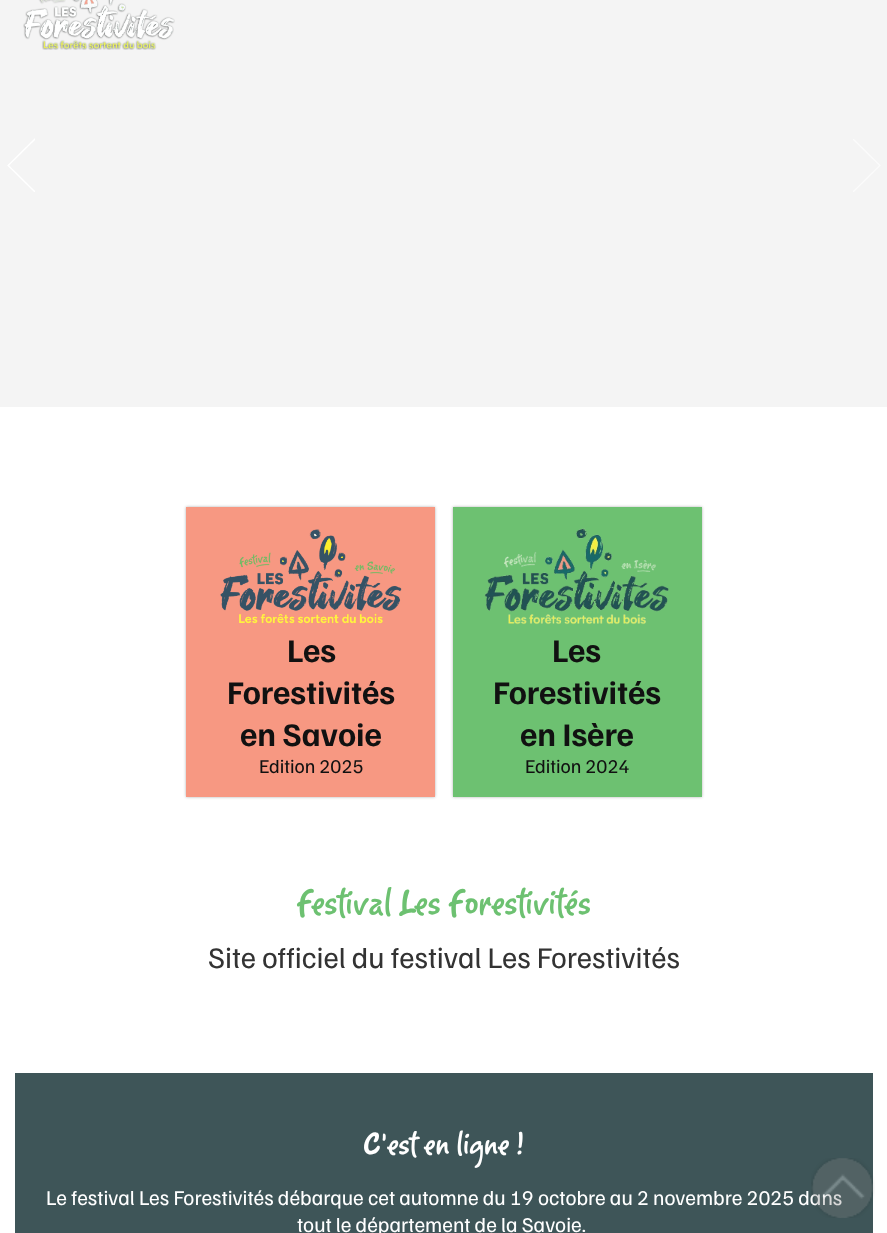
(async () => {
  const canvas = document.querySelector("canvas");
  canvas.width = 887;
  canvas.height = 1233;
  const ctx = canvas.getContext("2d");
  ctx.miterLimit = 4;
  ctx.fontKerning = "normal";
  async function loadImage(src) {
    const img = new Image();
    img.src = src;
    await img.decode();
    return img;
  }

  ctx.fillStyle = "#ffffff";
  ctx.fillRect(0, 0, 887, 1233);
  ctx.fillStyle = "#f4f4f4";
  ctx.fillRect(0, 0, 887, 407);
  ctx.drawImage(await loadImage("img/1.png"), 7, 138, 28, 54);
  ctx.drawImage(await loadImage("img/2.png"), 853, 139, 28, 53);
  ctx.drawImage(await loadImage("img/3.png"), 23, 0, 152, 50);
  ctx.fillStyle = "rgba(0, 0, 0, 0.3)";
  ctx.filter = "blur(1.5px)";
  ctx.beginPath();
  ctx.rect(186, 507, 249, 290);
  ctx.fill();
  ctx.filter = "none";
  ctx.fillStyle = "#f79882";
  ctx.fillRect(186, 507, 249, 290);
  ctx.drawImage(await loadImage("img/4.png"), 220, 529, 182, 95);
  ctx.fillStyle = "rgba(0, 0, 0, 0.3)";
  ctx.filter = "blur(1.5px)";
  ctx.beginPath();
  ctx.rect(453, 507, 249, 290);
  ctx.fill();
  ctx.filter = "none";
  ctx.fillStyle = "#6dc171";
  ctx.fillRect(453, 507, 249, 290);
  ctx.drawImage(await loadImage("img/5.png"), 484, 528, 185, 97);
  ctx.fillStyle = "#3e5558";
  ctx.fillRect(15, 1073, 858, 160);
  ctx.font = "bold 33px Familjen Grotesk";
  ctx.fillStyle = "#111111";
  for (const [text, x, y] of [
    ["Les", 287, 662],
    ["Forestivités", 227, 704],
    ["en Savoie", 240, 746],
  ]) {
    ctx.fillText(text, x, y);
  }
  ctx.font = "19.5px Familjen Grotesk";
  ctx.fillText("Edition 2025", 259, 773);
  ctx.font = "bold 33px Familjen Grotesk";
  for (const [text, x, y] of [
    ["Les", 552, 662],
    ["Forestivités", 493, 704],
    ["en Isère", 520, 746],
  ]) {
    ctx.fillText(text, x, y);
  }
  ctx.font = "19.5px Familjen Grotesk";
  ctx.fillText("Edition 2024", 525, 773);
  ctx.font = "45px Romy";
  ctx.fillStyle = "#6dc171";
  ctx.fillText("Festival Les Forestivités", 297, 913);
  ctx.font = "30px Familjen Grotesk";
  ctx.fillStyle = "#333333";
  ctx.fillText("Site officiel du festival Les Forestivités", 208, 968);
  ctx.font = "39px Romy";
  ctx.fillStyle = "#ffffff";
  ctx.fillText("C’est en ligne !", 363, 1153);
  ctx.font = "21px Familjen Grotesk";
  ctx.fillText("Le festival Les Forestivités débarque cet automne du 19 octobre au 2 novembre 2025 dans", 46, 1205);
  ctx.fillText("tout le département de la Savoie.", 297, 1232);
  ctx.drawImage(await loadImage("img/6.png"), 811, 1158, 64, 60);
})();
